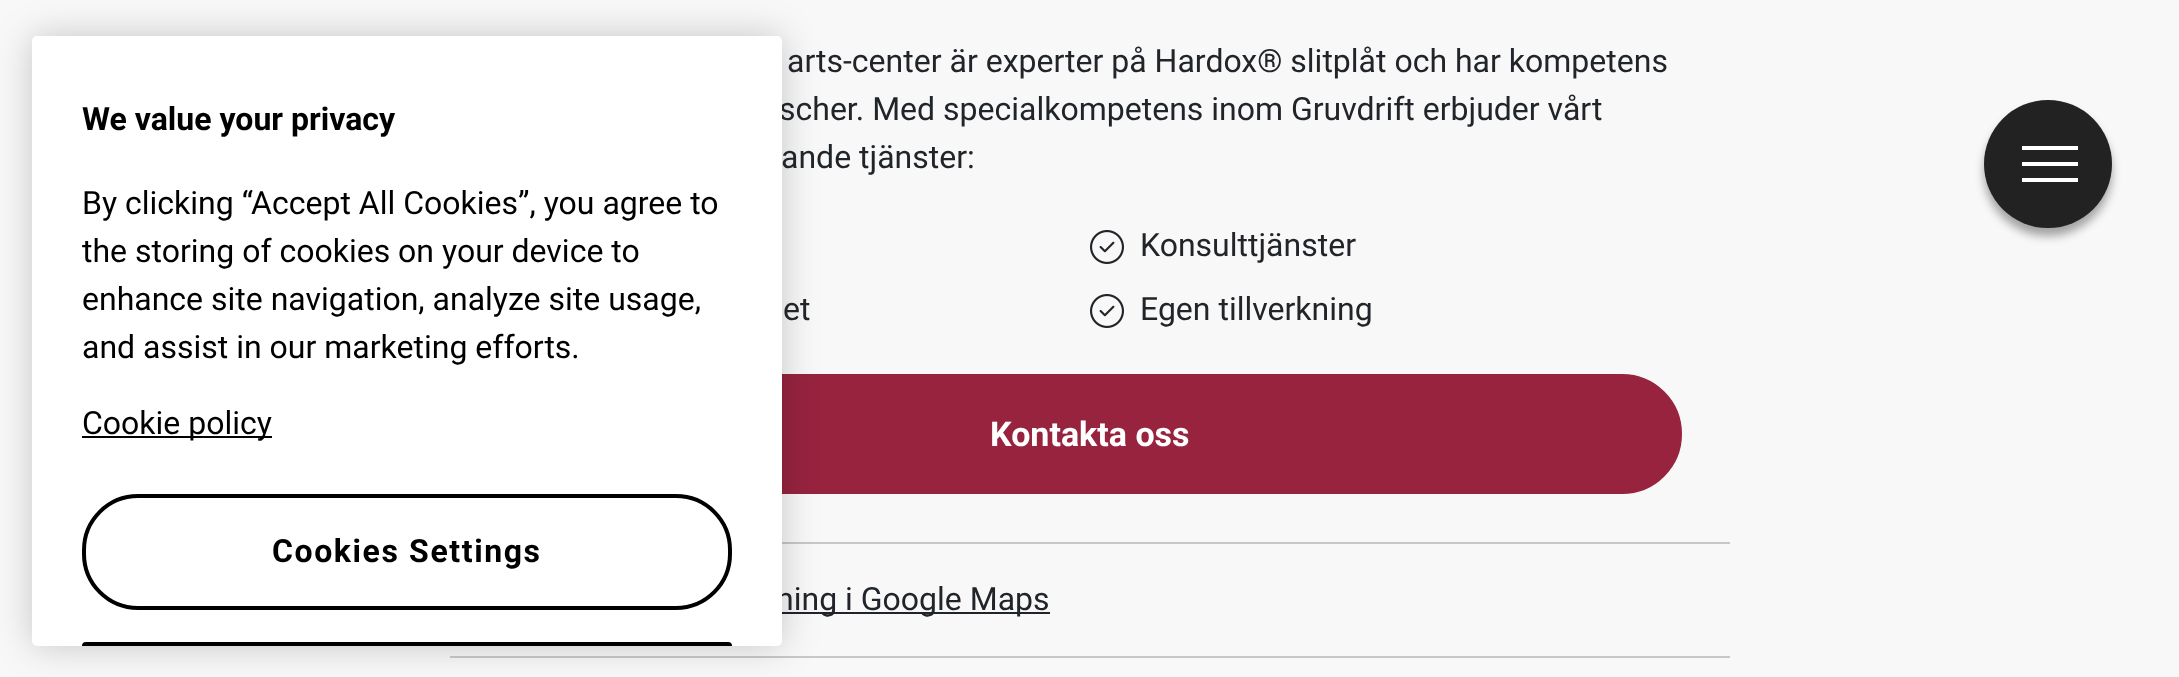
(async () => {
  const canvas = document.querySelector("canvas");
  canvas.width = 2179;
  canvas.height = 677;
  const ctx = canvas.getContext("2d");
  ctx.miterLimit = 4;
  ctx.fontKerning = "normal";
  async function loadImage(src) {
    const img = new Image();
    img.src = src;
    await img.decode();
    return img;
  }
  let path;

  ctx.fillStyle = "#f8f8f8";
  ctx.fillRect(0, 0, 2179, 677);
  ctx.fillStyle = "#97233f";
  ctx.beginPath();
  ctx.roundRect(500, 376, 1180, 116, 58);
  ctx.fill();
  ctx.strokeStyle = "#97233f";
  ctx.lineWidth = 4;
  ctx.stroke();
  for (const [x, y, w, h, color] of [
    [782, 542, 948, 2, "#c8c8c8"],
    [450, 656, 1280, 2, "#c8c8c8"],
    [782, 612, 268, 2, "#212529"],
  ]) {
    ctx.fillStyle = color;
    ctx.fillRect(x, y, w, h);
  }
  ctx.fillStyle = "rgba(0, 0, 0, 0.2)";
  ctx.filter = "blur(18px)";
  ctx.beginPath();
  ctx.roundRect(32, 36, 750, 610, 5);
  ctx.fill();
  ctx.filter = "none";
  ctx.drawImage(await loadImage("img/1.png"), 1090, 230, 34, 34);
  ctx.drawImage(await loadImage("img/1.png"), 1090, 294, 34, 34);
  ctx.fillStyle = "rgba(0, 0, 0, 0.35)";
  ctx.filter = "blur(5px)";
  ctx.beginPath();
  ctx.roundRect(1984, 108, 128, 128, 64);
  ctx.fill();
  ctx.filter = "none";
  ctx.fillStyle = "#222222";
  ctx.beginPath();
  ctx.arc(2048, 164, 64, 0, Math.PI * 2);
  ctx.fill();
  for (const [x, y, w, h, color] of [
    [2022, 146, 56, 4, "#ffffff"],
    [2022, 162, 56, 4, "#ffffff"],
    [2022, 178, 56, 4, "#ffffff"],
  ]) {
    ctx.fillStyle = color;
    ctx.fillRect(x, y, w, h);
  }
  ctx.font = "32px Roboto";
  ctx.fillStyle = "#212529";
  for (const [text, x, y] of [
    ["arts-center är experter på Hardox® slitplåt och har kompetens", 787, 72],
    ["scher. Med specialkompetens inom Gruvdrift erbjuder vårt", 779, 120],
    ["ande tjänster:", 781, 168],
    ["Konsulttjänster", 1140, 256],
    ["et", 783, 320],
    ["Egen tillverkning", 1140, 320],
  ]) {
    ctx.fillText(text, x, y);
  }
  ctx.font = "bold 34px Roboto";
  ctx.fillStyle = "#ffffff";
  ctx.fillText("Kontakta oss", 990, 446);
  ctx.font = "32px Roboto";
  ctx.fillStyle = "#212529";
  ctx.fillText("ning i Google Maps", 776, 610);
  ctx.fillStyle = "#ffffff";
  ctx.beginPath();
  ctx.roundRect(32, 36, 750, 610, 5);
  ctx.fill();
  ctx.beginPath();
  ctx.roundRect(84, 496, 646, 112, 54);
  ctx.strokeStyle = "#000000";
  ctx.stroke();
  ctx.letterSpacing = "1.6px";
  ctx.font = "bold 32px Roboto";
  ctx.fillStyle = "#000000";
  ctx.fillText("Cookies Settings", 272, 562);
  ctx.beginPath();
  ctx.roundRect(82, 642, 650, 4, [56, 56, 0, 0]);
  ctx.fill();
  path = new Path2D("M138 642C131 642 124 643 117 646H697C690 643 683 642 676 642Z");
  ctx.fill(path);
  ctx.fillRect(82, 436, 190, 2);
  ctx.letterSpacing = "0px";
  ctx.font = "32px Roboto";
  for (const [text, x, y] of [
    ["Cookie policy", 82, 434],
    ["and assist in our marketing efforts.", 82, 358],
    ["enhance site navigation, analyze site usage,", 82, 310],
    ["the storing of cookies on your device to", 82, 262],
    ["By clicking “Accept All Cookies”, you agree to", 82, 214],
  ]) {
    ctx.fillText(text, x, y);
  }
  ctx.font = "bold 32px Roboto";
  ctx.fillText("We value your privacy", 82, 130);
})();
